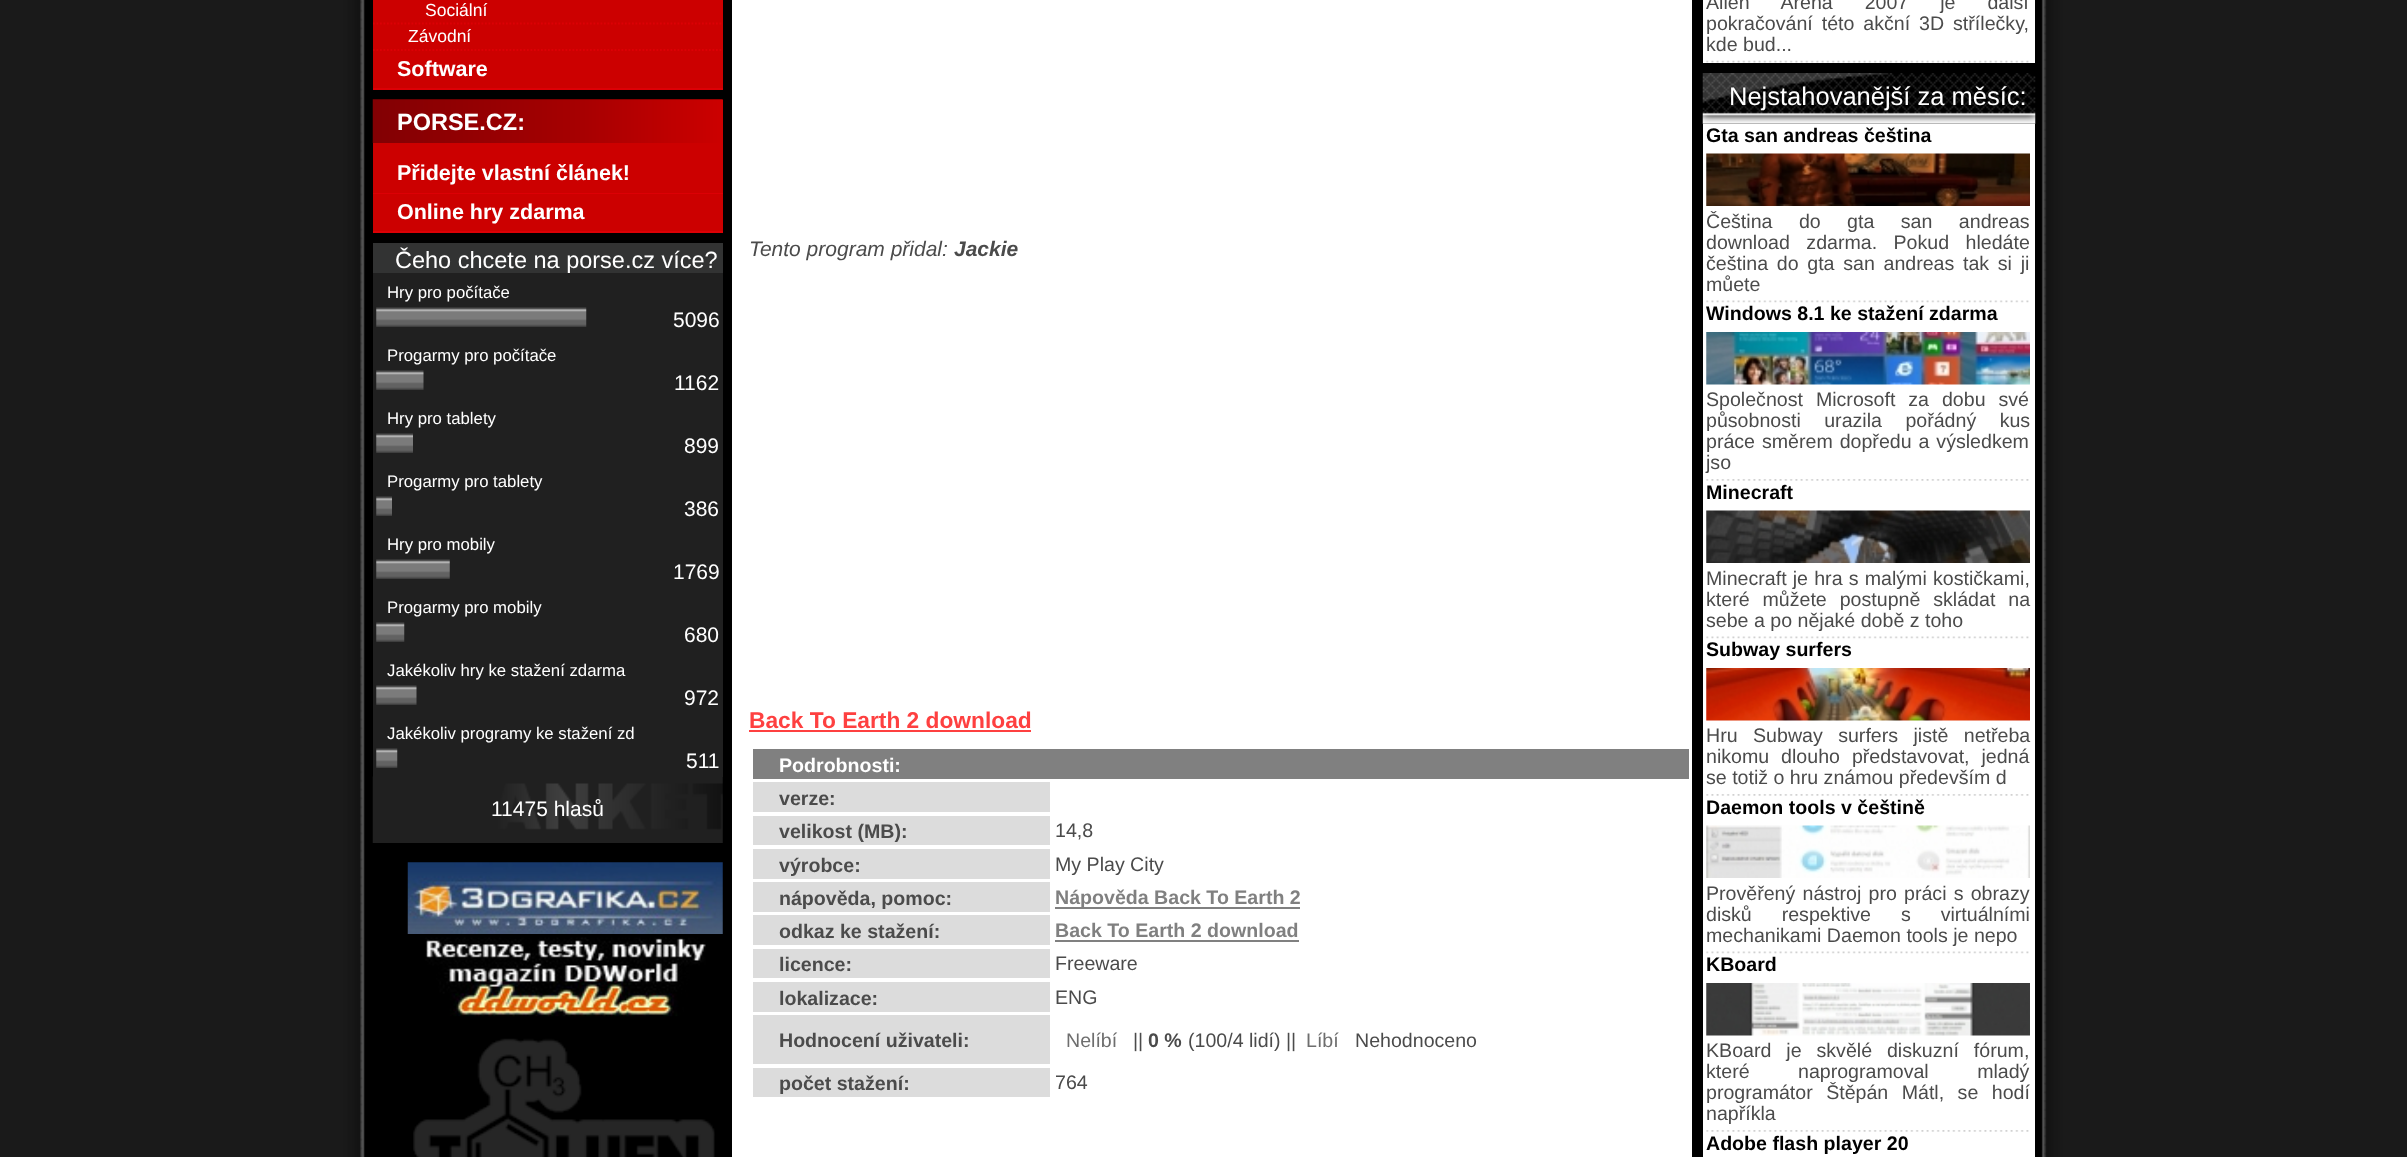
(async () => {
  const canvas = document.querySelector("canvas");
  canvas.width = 2407;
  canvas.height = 1157;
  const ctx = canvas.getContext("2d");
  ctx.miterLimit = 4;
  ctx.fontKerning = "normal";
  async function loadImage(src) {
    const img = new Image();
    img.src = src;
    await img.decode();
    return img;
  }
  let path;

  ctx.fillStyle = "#ffffff";
  ctx.fillRect(0, 0, 2407, 1157);
  ctx.drawImage(await loadImage("img/1.png"), 0, 0, 2407, 1157);
  ctx.fillStyle = "#cc0000";
  ctx.fillRect(373, 0, 350, 88);
  path = new Path2D("M373 23.5H723");
  ctx.strokeStyle = "#dc0005";
  ctx.lineWidth = 1.8;
  ctx.setLineDash([1.75, 1.75]);
  ctx.stroke(path);
  path = new Path2D("M373 50H723");
  ctx.stroke(path);
  ctx.fillStyle = "#dc0005";
  ctx.fillRect(373, 88, 350, 2);
  ctx.fillStyle = "#cc0000";
  ctx.fillRect(373, 100, 350, 93);
  ctx.drawImage(await loadImage("img/2.png"), 372, 99, 351, 44);
  for (const [x, y, w, h, color] of [
    [373, 193, 350, 1, "#dc0005"],
    [373, 194, 350, 37, "#cc0000"],
    [373, 231, 350, 2, "#dc0005"],
    [373, 273, 350, 504, "#202020"],
    [373, 243, 350, 30, "#323333"],
  ]) {
    ctx.fillStyle = color;
    ctx.fillRect(x, y, w, h);
  }
  ctx.drawImage(await loadImage("img/3.png"), 376, 307, 211, 20);
  ctx.drawImage(await loadImage("img/4.png"), 376, 370, 48, 20);
  ctx.drawImage(await loadImage("img/5.png"), 376, 433, 37, 20);
  ctx.drawImage(await loadImage("img/6.png"), 376, 496, 16, 20);
  ctx.drawImage(await loadImage("img/7.png"), 376, 559, 74, 20);
  ctx.drawImage(await loadImage("img/8.png"), 376, 622, 29, 20);
  ctx.drawImage(await loadImage("img/9.png"), 376, 685, 41, 20);
  ctx.drawImage(await loadImage("img/10.png"), 376, 748, 22, 20);
  ctx.drawImage(await loadImage("img/11.png"), 372, 776, 351, 67);
  ctx.drawImage(await loadImage("img/12.png"), 407, 862, 316, 72);
  ctx.drawImage(await loadImage("img/13.png"), 425, 937, 281, 80);
  ctx.drawImage(await loadImage("img/14.png"), 413, 1038, 302, 119);
  for (const [x, y, w, h, color] of [
    [732, 0, 960, 1157, "#ffffff"],
    [749, 730, 282, 2, "#fe4040"],
    [753, 749, 936, 30, "#808080"],
    [753, 782, 297, 30, "#dcdcdc"],
    [753, 816, 297, 29, "#dcdcdc"],
    [753, 849, 297, 30, "#dcdcdc"],
    [753, 882, 297, 30, "#dcdcdc"],
    [1055, 907, 245, 2, "#808080"],
    [753, 915, 297, 30, "#dcdcdc"],
    [1055, 940, 244, 2, "#808080"],
    [753, 949, 297, 29, "#dcdcdc"],
    [753, 982, 297, 30, "#dcdcdc"],
    [753, 1015, 297, 49, "#dcdcdc"],
    [753, 1068, 297, 29, "#dcdcdc"],
    [1703, 0, 332, 63, "#ffffff"],
  ]) {
    ctx.fillStyle = color;
    ctx.fillRect(x, y, w, h);
  }
  ctx.drawImage(await loadImage("img/15.png"), 1706, 60, 323, 3);
  ctx.drawImage(await loadImage("img/16.png"), 1702, 73, 334, 51);
  ctx.fillRect(1703, 124, 332, 1033);
  ctx.drawImage(await loadImage("img/17.png"), 1706, 300, 323, 3);
  ctx.drawImage(await loadImage("img/18.png"), 1706, 153, 324, 53);
  ctx.drawImage(await loadImage("img/19.png"), 1706, 479, 323, 2);
  ctx.drawImage(await loadImage("img/20.png"), 1706, 332, 324, 53);
  ctx.drawImage(await loadImage("img/17.png"), 1706, 636, 323, 3);
  ctx.drawImage(await loadImage("img/21.png"), 1706, 510, 324, 53);
  ctx.drawImage(await loadImage("img/19.png"), 1706, 794, 323, 2);
  ctx.drawImage(await loadImage("img/22.png"), 1706, 668, 324, 53);
  ctx.drawImage(await loadImage("img/17.png"), 1706, 951, 323, 3);
  ctx.drawImage(await loadImage("img/23.png"), 1706, 825, 324, 53);
  ctx.drawImage(await loadImage("img/19.png"), 1706, 1130, 323, 2);
  ctx.drawImage(await loadImage("img/24.png"), 1706, 983, 324, 53);
  ctx.font = "17.5px Liberation Sans";
  ctx.fillText("Sociální", 425, 16);
  ctx.fillText("Závodní", 408, 42);
  ctx.font = "bold 21.5px Liberation Sans";
  ctx.fillText("Software", 397, 76);
  ctx.font = "bold 23.5px Liberation Sans";
  ctx.fillText("PORSE.CZ:", 397, 130);
  ctx.font = "bold 21.5px Liberation Sans";
  ctx.fillText("Přidejte vlastní článek!", 397, 180);
  ctx.fillText("Online hry zdarma", 397, 219);
  ctx.font = "23.5px Liberation Sans";
  ctx.fillText("Čeho chcete na porse.cz více?", 395, 268);
  ctx.font = "16.75px Liberation Sans";
  ctx.fillText("Hry pro počítače", 387, 298);
  ctx.font = "21px Liberation Sans";
  ctx.fillText("5096", 673, 327);
  ctx.font = "16.75px Liberation Sans";
  ctx.fillText("Progarmy pro počítače", 387, 361);
  ctx.font = "21px Liberation Sans";
  ctx.fillText("1162", 674, 390);
  ctx.font = "16.75px Liberation Sans";
  ctx.fillText("Hry pro tablety", 387, 424);
  ctx.font = "21px Liberation Sans";
  ctx.fillText("899", 684, 453);
  ctx.font = "16.75px Liberation Sans";
  ctx.fillText("Progarmy pro tablety", 387, 487);
  ctx.font = "21px Liberation Sans";
  ctx.fillText("386", 684, 516);
  ctx.font = "16.75px Liberation Sans";
  ctx.fillText("Hry pro mobily", 387, 550);
  ctx.font = "21px Liberation Sans";
  ctx.fillText("1769", 673, 579);
  ctx.font = "16.75px Liberation Sans";
  ctx.fillText("Progarmy pro mobily", 387, 613);
  ctx.font = "21px Liberation Sans";
  ctx.fillText("680", 684, 642);
  ctx.font = "16.75px Liberation Sans";
  ctx.fillText("Jakékoliv hry ke stažení zdarma", 387, 676);
  ctx.font = "21px Liberation Sans";
  ctx.fillText("972", 684, 705);
  ctx.font = "16.75px Liberation Sans";
  ctx.fillText("Jakékoliv programy ke stažení zd", 387, 739);
  ctx.font = "21px Liberation Sans";
  ctx.fillText("511", 686, 768);
  ctx.fillText("11475 hlasů", 491, 816);
  ctx.font = "italic 21px Liberation Sans";
  ctx.fillStyle = "#4b4b4b";
  ctx.fillText("Tento program přidal:", 749, 256);
  ctx.font = "italic bold 21px Liberation Sans";
  ctx.fillText("Jackie", 954, 256);
  ctx.font = "bold 22.75px Liberation Sans";
  ctx.fillStyle = "#fe4040";
  ctx.fillText("Back To Earth 2 download", 749, 728);
  ctx.font = "bold 19.6px Liberation Sans";
  ctx.fillStyle = "#ffffff";
  ctx.fillText("Podrobnosti:", 779, 772);
  ctx.fillStyle = "#4b4b4b";
  ctx.fillText("verze:", 779, 805);
  ctx.fillText("velikost (MB):", 779, 838);
  ctx.font = "19.6px Liberation Sans";
  ctx.fillText("14,8", 1055, 837);
  ctx.font = "bold 19.6px Liberation Sans";
  ctx.fillText("výrobce:", 779, 872);
  ctx.font = "19.6px Liberation Sans";
  ctx.fillText("My Play City", 1055, 871);
  ctx.font = "bold 19.6px Liberation Sans";
  ctx.fillText("nápověda, pomoc:", 779, 905);
  ctx.fillStyle = "#808080";
  ctx.fillText("Nápověda Back To Earth 2", 1055, 904);
  ctx.fillStyle = "#4b4b4b";
  ctx.fillText("odkaz ke stažení:", 779, 938);
  ctx.fillStyle = "#808080";
  ctx.fillText("Back To Earth 2 download", 1055, 937);
  ctx.fillStyle = "#4b4b4b";
  ctx.fillText("licence:", 779, 971);
  ctx.font = "19.6px Liberation Sans";
  ctx.fillText("Freeware", 1055, 970);
  ctx.font = "bold 19.6px Liberation Sans";
  ctx.fillText("lokalizace:", 779, 1005);
  ctx.font = "19.6px Liberation Sans";
  ctx.fillText("ENG", 1055, 1004);
  ctx.font = "bold 19.6px Liberation Sans";
  ctx.fillText("Hodnocení uživateli:", 779, 1047);
  ctx.font = "19.6px Liberation Sans";
  ctx.fillStyle = "#6e6e6e";
  ctx.fillText("Nelíbí", 1066, 1047);
  ctx.fillStyle = "#4b4b4b";
  ctx.fillText("||", 1133, 1047);
  ctx.font = "bold 19.6px Liberation Sans";
  ctx.fillText("0 %", 1148, 1047);
  ctx.font = "19.6px Liberation Sans";
  ctx.fillText("(100/4 lidí) ||", 1188, 1047);
  ctx.fillStyle = "#6e6e6e";
  ctx.fillText("Líbí", 1306, 1047);
  ctx.fillStyle = "#4b4b4b";
  ctx.fillText("Nehodnoceno", 1355, 1047);
  ctx.font = "bold 19.6px Liberation Sans";
  ctx.fillText("počet stažení:", 779, 1090);
  ctx.font = "19.6px Liberation Sans";
  ctx.fillText("764", 1055, 1089);
  ctx.wordSpacing = "26.5px";
  ctx.fillText("Alien Arena 2007 je další", 1706, 9);
  ctx.wordSpacing = "3.5px";
  ctx.fillText("pokračování této akční 3D střílečky,", 1706, 30);
  ctx.wordSpacing = "0px";
  ctx.fillText("kde bud...", 1706, 51);
  ctx.font = "25.5px Liberation Sans";
  ctx.fillStyle = "#ffffff";
  ctx.fillText("Nejstahovanější za měsíc:", 1729, 105);
  ctx.font = "bold 19.6px Liberation Sans";
  ctx.fillStyle = "#000000";
  ctx.fillText("Gta san andreas čeština", 1706, 142);
  ctx.wordSpacing = "21px";
  ctx.font = "19.6px Liberation Sans";
  ctx.fillStyle = "#4b4b4b";
  ctx.fillText("Čeština do gta san andreas", 1706, 228);
  ctx.wordSpacing = "11px";
  ctx.fillText("download zdarma. Pokud hledáte", 1706, 249);
  ctx.wordSpacing = "3.25px";
  ctx.fillText("čeština do gta san andreas tak si ji", 1706, 270);
  ctx.wordSpacing = "0px";
  ctx.fillText("můete", 1706, 291);
  ctx.font = "bold 19.6px Liberation Sans";
  ctx.fillStyle = "#000000";
  ctx.fillText("Windows 8.1 ke stažení zdarma", 1706, 320);
  ctx.wordSpacing = "7.5px";
  ctx.font = "19.6px Liberation Sans";
  ctx.fillStyle = "#4b4b4b";
  ctx.fillText("Společnost Microsoft za dobu své", 1706, 406);
  ctx.wordSpacing = "18px";
  ctx.fillText("působnosti urazila pořádný kus", 1706, 427);
  ctx.wordSpacing = "1.5px";
  ctx.fillText("práce směrem dopředu a výsledkem", 1706, 448);
  ctx.wordSpacing = "0px";
  ctx.fillText("jso", 1706, 469);
  ctx.font = "bold 19.6px Liberation Sans";
  ctx.fillStyle = "#000000";
  ctx.fillText("Minecraft", 1706, 499);
  ctx.wordSpacing = "0.75px";
  ctx.font = "19.6px Liberation Sans";
  ctx.fillStyle = "#4b4b4b";
  ctx.fillText("Minecraft je hra s malými kostičkami,", 1706, 585);
  ctx.wordSpacing = "7.5px";
  ctx.fillText("které můžete postupně skládat na", 1706, 606);
  ctx.wordSpacing = "0px";
  ctx.fillText("sebe a po nějaké době z toho", 1706, 627);
  ctx.font = "bold 19.6px Liberation Sans";
  ctx.fillStyle = "#000000";
  ctx.fillText("Subway surfers", 1706, 656);
  ctx.wordSpacing = "10px";
  ctx.font = "19.6px Liberation Sans";
  ctx.fillStyle = "#4b4b4b";
  ctx.fillText("Hru Subway surfers jistě netřeba", 1706, 742);
  ctx.wordSpacing = "6.5px";
  ctx.fillText("nikomu dlouho představovat, jedná", 1706, 763);
  ctx.wordSpacing = "0px";
  ctx.fillText("se totiž o hru známou především d", 1706, 784);
  ctx.font = "bold 19.6px Liberation Sans";
  ctx.fillStyle = "#000000";
  ctx.fillText("Daemon tools v češtině", 1706, 814);
  ctx.wordSpacing = "1.75px";
  ctx.font = "19.6px Liberation Sans";
  ctx.fillStyle = "#4b4b4b";
  ctx.fillText("Prověřený nástroj pro práci s obrazy", 1706, 900);
  ctx.wordSpacing = "24.5px";
  ctx.fillText("disků respektive s virtuálními", 1706, 921);
  ctx.wordSpacing = "0px";
  ctx.fillText("mechanikami Daemon tools je nepo", 1706, 942);
  ctx.font = "bold 19.6px Liberation Sans";
  ctx.fillStyle = "#000000";
  ctx.fillText("KBoard", 1706, 971);
  ctx.wordSpacing = "9.5px";
  ctx.font = "19.6px Liberation Sans";
  ctx.fillStyle = "#4b4b4b";
  ctx.fillText("KBoard je skvělé diskuzní fórum,", 1706, 1057);
  ctx.wordSpacing = "43px";
  ctx.fillText("které naprogramoval mladý", 1706, 1078);
  ctx.wordSpacing = "8px";
  ctx.fillText("programátor Štěpán Mátl, se hodí", 1706, 1099);
  ctx.wordSpacing = "0px";
  ctx.fillText("napříkla", 1706, 1120);
  ctx.font = "bold 19.6px Liberation Sans";
  ctx.fillStyle = "#000000";
  ctx.fillText("Adobe flash player 20", 1706, 1150);
})();
